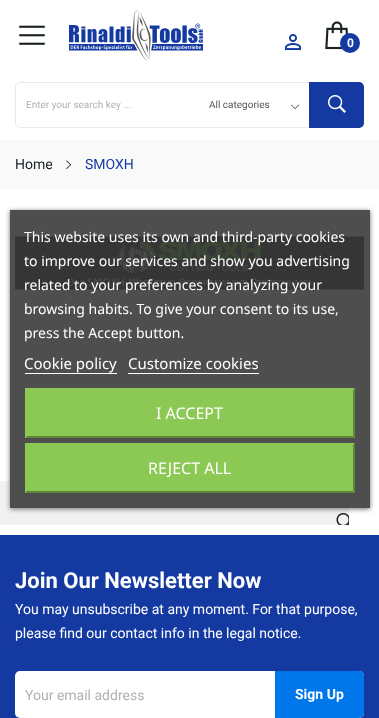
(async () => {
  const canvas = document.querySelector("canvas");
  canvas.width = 379;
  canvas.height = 718;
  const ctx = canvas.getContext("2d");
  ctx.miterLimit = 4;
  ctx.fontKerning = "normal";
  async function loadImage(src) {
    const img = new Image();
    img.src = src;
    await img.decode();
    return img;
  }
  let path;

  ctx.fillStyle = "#ffffff";
  ctx.fillRect(0, 0, 379, 718);
  ctx.drawImage(await loadImage("img/1.png"), 19, 25, 26, 20);
  ctx.drawImage(await loadImage("img/2.png"), 69, 10, 134, 50);
  ctx.drawImage(await loadImage("img/3.png"), 285, 34, 16, 16);
  ctx.drawImage(await loadImage("img/4.png"), 325, 21, 23, 29);
  ctx.fillStyle = "#143aa2";
  ctx.beginPath();
  ctx.arc(350, 43, 10, 0, Math.PI * 2);
  ctx.fill();
  ctx.beginPath();
  ctx.roundRect(15.5, 82.5, 348, 45, 4.5);
  ctx.strokeStyle = "#ebebeb";
  ctx.stroke();
  ctx.drawImage(await loadImage("img/5.png"), 291, 104, 8, 5);
  ctx.beginPath();
  ctx.roundRect(309, 82, 55, 46, [0, 5, 5, 0]);
  ctx.fill();
  ctx.drawImage(await loadImage("img/6.png"), 328, 95, 18, 18);
  ctx.fillStyle = "#f9f9f9";
  ctx.fillRect(0, 140, 379, 49);
  ctx.drawImage(await loadImage("img/7.png"), 66, 160, 6, 9);
  ctx.drawImage(await loadImage("img/8.png"), 15, 236, 349, 54);
  ctx.save();
  ctx.beginPath();
  ctx.rect(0, 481, 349, 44);
  ctx.clip();
  ctx.fillStyle = "rgba(0, 0, 0, 0.15)";
  ctx.filter = "blur(2px)";
  ctx.beginPath();
  ctx.roundRect(0, 481, 349, 44, 5);
  ctx.fill();
  ctx.filter = "none";
  ctx.restore();
  ctx.fillStyle = "#f1f1f1";
  ctx.beginPath();
  ctx.roundRect(0, 481, 349, 44, 5);
  ctx.fill();
  ctx.drawImage(await loadImage("img/9.png"), 336, 513, 13, 12);
  ctx.save();
  path = new Path2D("M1 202H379V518H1ZM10 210H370V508H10Z");
  ctx.clip(path, "evenodd");
  ctx.fillStyle = "#707070";
  ctx.filter = "blur(2.5px)";
  ctx.beginPath();
  ctx.rect(10, 211, 360, 298);
  ctx.fill();
  ctx.filter = "none";
  ctx.restore();
  for (const [x, y, w, h, color] of [
    [10, 210, 360, 298, "rgba(59, 59, 59, 0.9)"],
    [25, 373, 92, 1, "#ffffff"],
    [128, 373, 131, 1, "#ffffff"],
    [25, 388, 330, 50, "#8bc954"],
  ]) {
    ctx.fillStyle = color;
    ctx.fillRect(x, y, w, h);
  }
  ctx.fillStyle = "#5d8638";
  path = new Path2D("M355 388V438L353 436V390Z");
  ctx.fill(path);
  path = new Path2D("M355 438H25L27 436H353Z");
  ctx.fill(path);
  ctx.fillStyle = "#8bc954";
  path = new Path2D("M25 438V388L27 390V436Z");
  ctx.fill(path);
  ctx.fillRect(25, 443, 330, 50);
  ctx.fillStyle = "#5d8638";
  path = new Path2D("M355 443V493L353 491V445Z");
  ctx.fill(path);
  path = new Path2D("M355 493H25L27 491H353Z");
  ctx.fill(path);
  ctx.fillStyle = "#8bc954";
  path = new Path2D("M25 493V443L27 445V491Z");
  ctx.fill(path);
  ctx.fillStyle = "#143aa2";
  ctx.fillRect(0, 535, 379, 183);
  ctx.fillStyle = "#ffffff";
  ctx.beginPath();
  ctx.roundRect(15, 671, 349, 47, 5);
  ctx.fill();
  ctx.fillStyle = "#0076eb";
  ctx.beginPath();
  ctx.roundRect(275, 671, 89, 47, [0, 5, 5, 0]);
  ctx.fill();
  ctx.font = "bold 12px Roboto";
  ctx.fillStyle = "#ffffff";
  ctx.fillText("0", 347, 47);
  ctx.font = "10px Roboto";
  ctx.fillStyle = "#b1b1b1";
  ctx.fillText("Enter your search key ...", 26, 108);
  ctx.fillStyle = "#555555";
  ctx.fillText("All categories", 209, 108);
  ctx.font = "14px Roboto";
  ctx.fillStyle = "#1a2225";
  ctx.fillText("Home", 15, 169);
  ctx.fillStyle = "#143aa2";
  ctx.fillText("SMOXH", 85, 169);
  ctx.font = "14px Noto Sans";
  ctx.fillStyle = "#ffffff";
  for (const [text, x, y] of [
    ["This website uses its own and third-party cookies", 24, 242],
    ["to improve our services and show you advertising", 24, 266],
    ["related to your preferences by analyzing your", 24, 290],
    ["browsing habits. To give your consent to its use,", 24, 314],
    ["press the Accept button.", 24, 338],
  ]) {
    ctx.fillText(text, x, y);
  }
  ctx.font = "15px Noto Sans";
  ctx.fillText("Cookie policy", 24, 369);
  ctx.fillText("Customize cookies", 128, 369);
  ctx.font = "16px Noto Sans";
  ctx.fillText("I ACCEPT", 156, 419);
  ctx.fillText("REJECT ALL", 148, 474);
  ctx.font = "bold 22px Roboto";
  ctx.fillText("Join Our Newsletter Now", 15, 588);
  ctx.font = "14px Roboto";
  ctx.fillText("You may unsubscribe at any moment. For that purpose,", 15, 614);
  ctx.fillText("please find our contact info in the legal notice.", 15, 638);
  ctx.fillStyle = "#b1b1b1";
  ctx.fillText("Your email address", 25, 700);
  ctx.font = "bold 14px Roboto";
  ctx.fillStyle = "#ffffff";
  ctx.fillText("Sign Up", 295, 699);
})();
